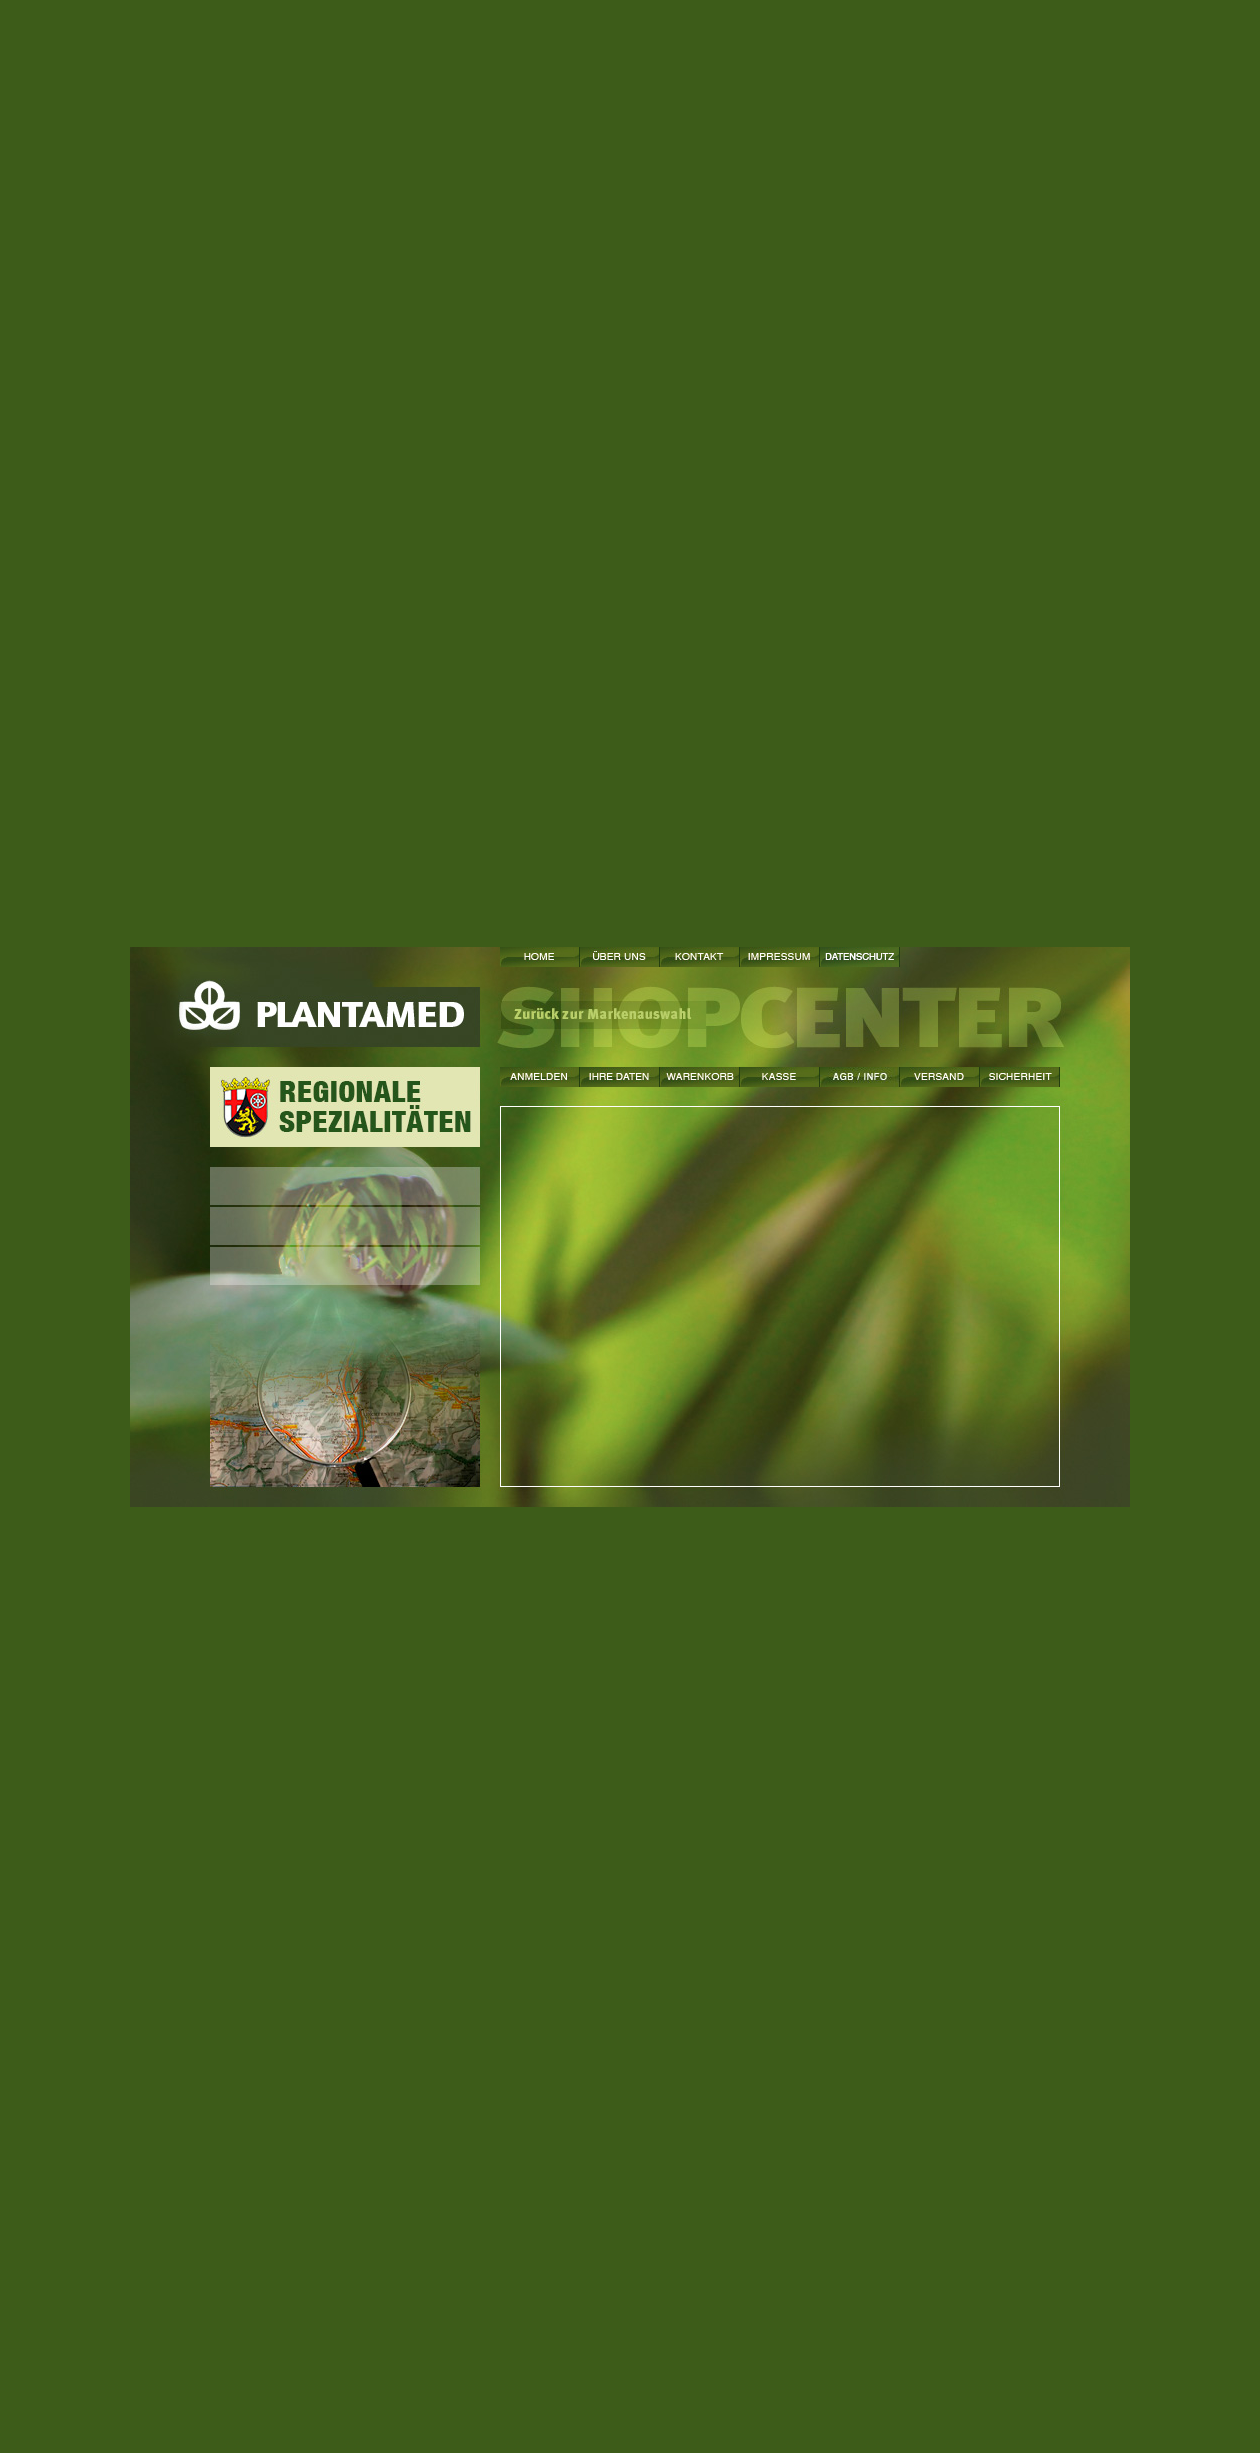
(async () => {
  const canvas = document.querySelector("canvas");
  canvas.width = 1260;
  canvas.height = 2453;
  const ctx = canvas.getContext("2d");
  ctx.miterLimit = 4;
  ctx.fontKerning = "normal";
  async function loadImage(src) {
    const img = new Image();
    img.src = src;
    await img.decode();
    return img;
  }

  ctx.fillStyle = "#3d5c19";
  ctx.fillRect(0, 0, 1260, 2453);
  ctx.drawImage(await loadImage("img/1.png"), 130, 947, 1000, 560);
  ctx.drawImage(await loadImage("img/2.png"), 500, 947, 80, 20);
  ctx.drawImage(await loadImage("img/3.png"), 580, 947, 80, 20);
  ctx.drawImage(await loadImage("img/4.png"), 660, 947, 80, 20);
  ctx.drawImage(await loadImage("img/5.png"), 740, 947, 80, 20);
  ctx.drawImage(await loadImage("img/6.png"), 820, 947, 80, 20);
  ctx.drawImage(await loadImage("img/7.png"), 500, 1067, 80, 20);
  ctx.drawImage(await loadImage("img/8.png"), 580, 1067, 80, 20);
  ctx.drawImage(await loadImage("img/9.png"), 660, 1067, 80, 20);
  ctx.drawImage(await loadImage("img/10.png"), 740, 1067, 80, 20);
  ctx.drawImage(await loadImage("img/11.png"), 820, 1067, 80, 20);
  ctx.drawImage(await loadImage("img/12.png"), 900, 1067, 80, 20);
  ctx.drawImage(await loadImage("img/13.png"), 980, 1067, 80, 20);
})();
